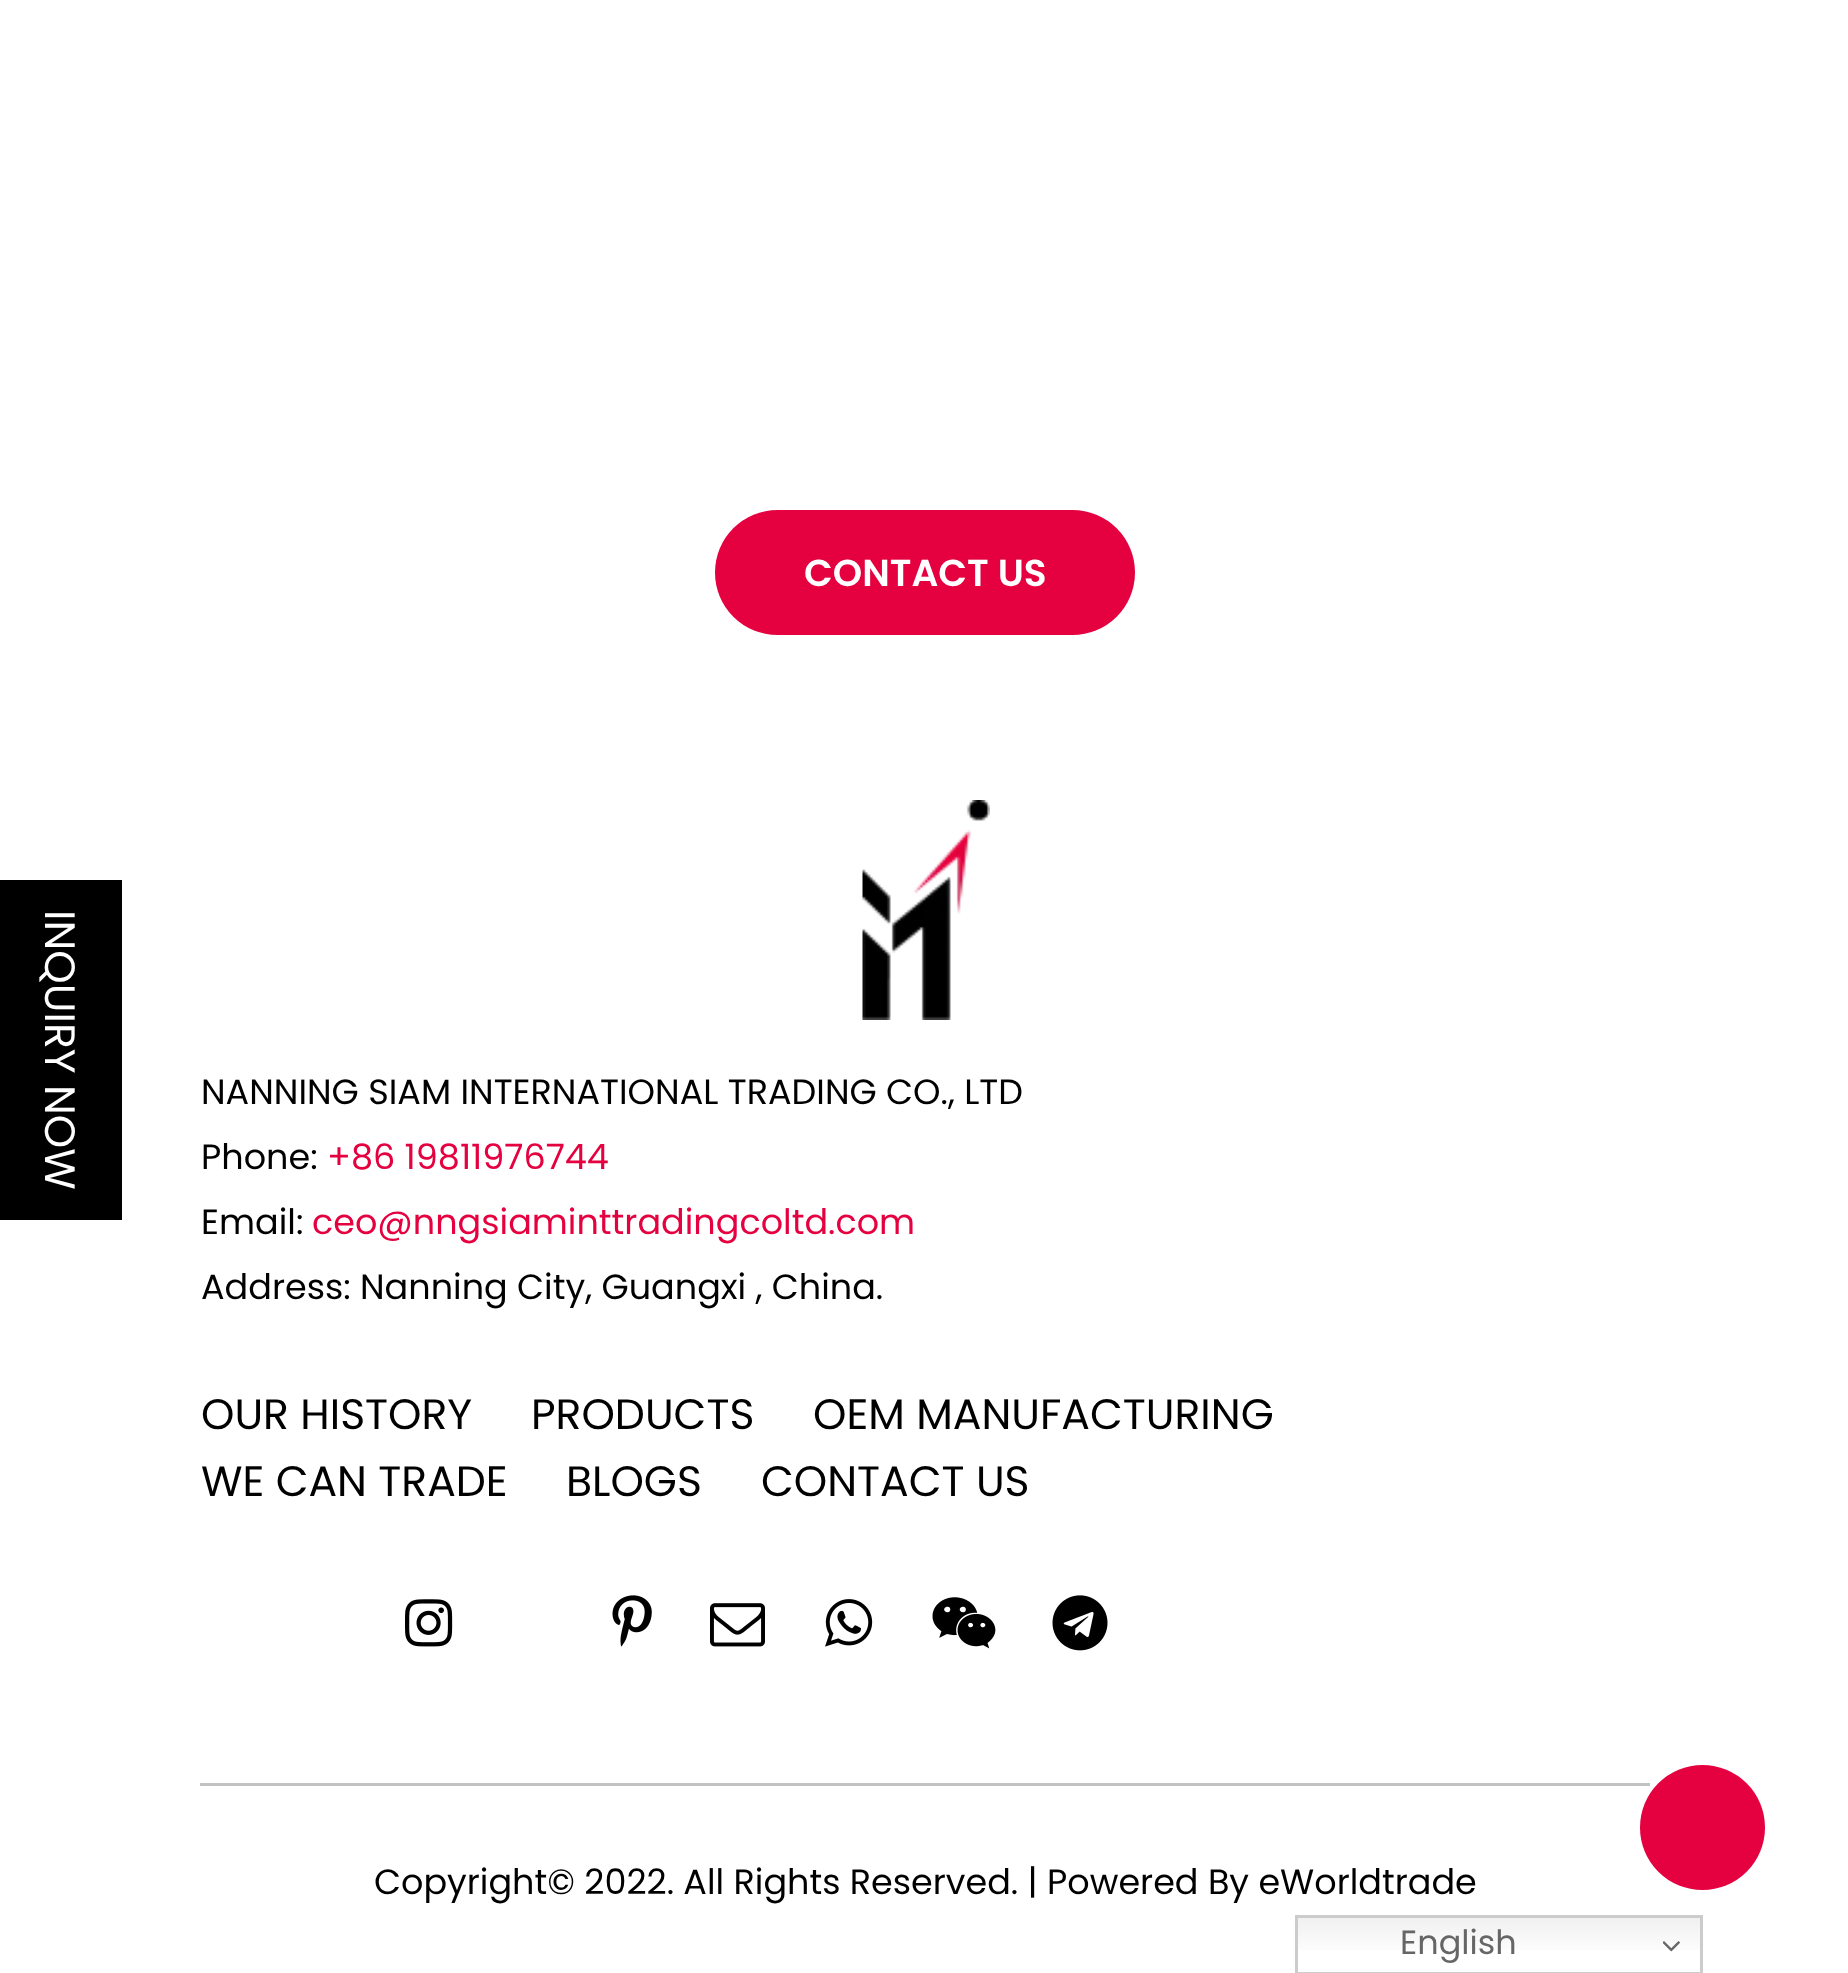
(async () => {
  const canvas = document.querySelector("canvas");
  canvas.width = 1848;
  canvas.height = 1973;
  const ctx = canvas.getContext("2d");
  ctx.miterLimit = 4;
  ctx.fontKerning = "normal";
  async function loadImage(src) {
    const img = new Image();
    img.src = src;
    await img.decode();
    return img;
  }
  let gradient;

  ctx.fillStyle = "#ffffff";
  ctx.fillRect(0, 0, 1848, 1973);
  ctx.fillStyle = "#000000";
  ctx.fillRect(0, 880, 122, 340);
  ctx.fillStyle = "#e50040";
  ctx.beginPath();
  ctx.roundRect(715, 510, 420, 125, 62.5);
  ctx.fill();
  ctx.drawImage(await loadImage("img/1.png"), 862, 800, 128, 220);
  ctx.drawImage(await loadImage("img/2.png"), 405, 1599, 48, 48);
  ctx.drawImage(await loadImage("img/3.png"), 612, 1595, 40, 52);
  ctx.drawImage(await loadImage("img/4.png"), 710, 1603, 55, 44);
  ctx.drawImage(await loadImage("img/5.png"), 825, 1599, 48, 48);
  ctx.drawImage(await loadImage("img/6.png"), 932, 1597, 64, 52);
  ctx.drawImage(await loadImage("img/7.png"), 1052, 1595, 56, 56);
  ctx.fillStyle = "#c2c2c2";
  ctx.fillRect(200, 1783, 1450, 3);
  ctx.fillStyle = "#e50040";
  ctx.beginPath();
  ctx.arc(1702.5, 1827.5, 62.5, 0, Math.PI * 2);
  ctx.fill();
  gradient = ctx.createLinearGradient(1499, 1915, 1499, 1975);
  gradient.addColorStop(0, "#efefef");
  gradient.addColorStop(0.7, "#ffffff");
  ctx.fillStyle = gradient;
  ctx.fillRect(1298, 1918, 402, 32);
  ctx.strokeStyle = "#cccccc";
  ctx.lineWidth = 3;
  ctx.strokeRect(1296.5, 1916.5, 405, 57);
  ctx.drawImage(await loadImage("img/8.png"), 1663, 1941, 17, 11);
  ctx.font = "42.5px Poppins";
  ctx.fillStyle = "#ffffff";
  ctx.save();
  ctx.translate(45, 910);
  ctx.rotate(90 * Math.PI / 180);
  ctx.fillText("INQUIRY NOW", 0, 0);
  ctx.restore();
  ctx.font = "600 37.5px Poppins";
  ctx.fillText("CONTACT US", 804, 586);
  ctx.font = "35px Poppins";
  ctx.fillStyle = "#000000";
  ctx.fillText("NANNING SIAM INTERNATIONAL TRADING CO., LTD", 201, 1104);
  ctx.fillText("Phone:", 201, 1169);
  ctx.fillStyle = "#e50040";
  ctx.fillText("+86 19811976744", 327, 1169);
  ctx.fillStyle = "#000000";
  ctx.fillText("Email:", 201, 1234);
  ctx.fillStyle = "#e50040";
  ctx.fillText("ceo@nngsiaminttradingcoltd.com", 312, 1234);
  ctx.fillStyle = "#000000";
  ctx.fillText("Address: Nanning City, Guangxi , China.", 201, 1299);
  ctx.font = "42.5px Poppins";
  for (const [text, x, y] of [
    ["OUR HISTORY", 201, 1429],
    ["PRODUCTS", 531, 1429],
    ["OEM MANUFACTURING", 813, 1429],
    ["WE CAN TRADE", 201, 1496],
    ["BLOGS", 566, 1496],
    ["CONTACT US", 761, 1496],
  ]) {
    ctx.fillText(text, x, y);
  }
  ctx.font = "35px Poppins";
  ctx.fillText("Copyright© 2022. All Rights Reserved. | Powered By eWorldtrade", 374, 1894);
  ctx.font = "33.5px Poppins";
  ctx.fillStyle = "#666666";
  ctx.fillText("English", 1400, 1954);
})();
